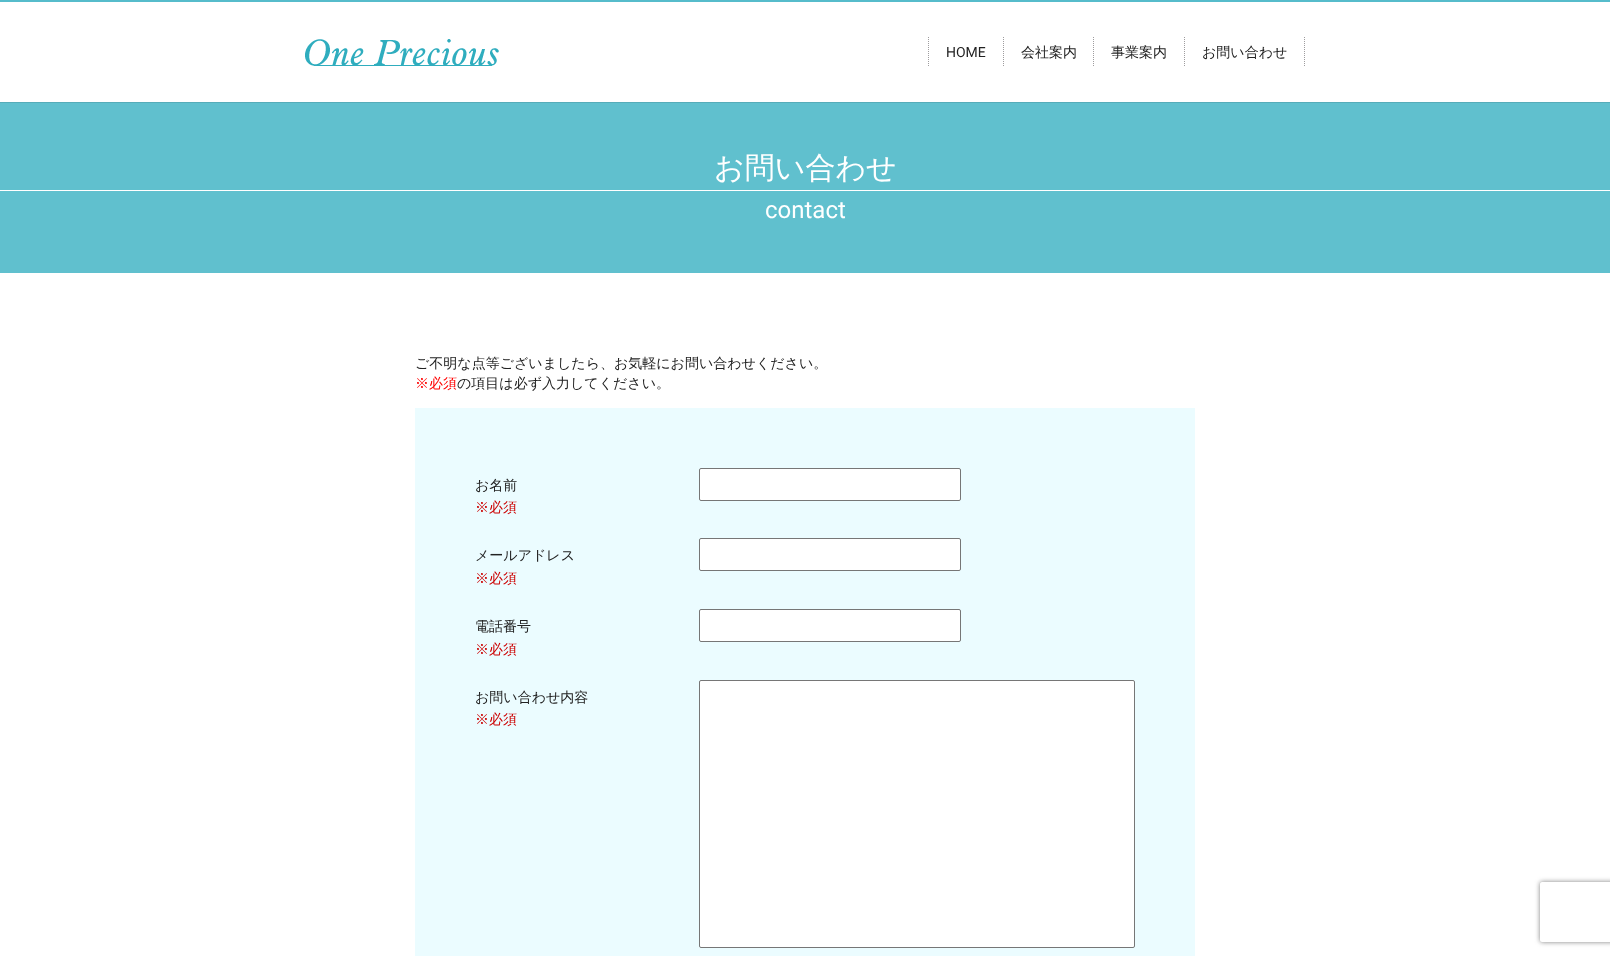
(async () => {
  const canvas = document.querySelector("canvas");
  canvas.width = 1610;
  canvas.height = 956;
  const ctx = canvas.getContext("2d");
  ctx.miterLimit = 4;
  ctx.fontKerning = "normal";
  async function loadImage(src) {
    const img = new Image();
    img.src = src;
    await img.decode();
    return img;
  }
  let path;

  ctx.fillStyle = "#ffffff";
  ctx.fillRect(0, 0, 1610, 956);
  ctx.fillStyle = "#60c0ce";
  ctx.fillRect(0, 102, 1610, 171);
  ctx.save();
  ctx.beginPath();
  ctx.rect(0, 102, 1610, 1);
  ctx.clip();
  ctx.fillStyle = "rgba(0, 0, 0, 0.1)";
  ctx.filter = "blur(0.5px)";
  ctx.beginPath();
  ctx.rect(0, 1, 1610, 102);
  ctx.fill();
  ctx.filter = "none";
  ctx.restore();
  ctx.fillStyle = "#56bccb";
  ctx.fillRect(0, 0, 1610, 2);
  ctx.drawImage(await loadImage("img/1.png"), 305, 39, 194, 27);
  path = new Path2D("M928.5 37V67");
  ctx.strokeStyle = "#9e9c9e";
  ctx.setLineDash([1, 1]);
  ctx.stroke(path);
  path = new Path2D("M1003.5 37V67");
  ctx.stroke(path);
  path = new Path2D("M1093.5 37V67");
  ctx.stroke(path);
  path = new Path2D("M1304.5 37V67");
  ctx.stroke(path);
  path = new Path2D("M1184.5 37V67");
  ctx.stroke(path);
  ctx.fillStyle = "#ffffff";
  ctx.fillRect(0, 190, 1610, 1);
  ctx.fillStyle = "#ebfcff";
  ctx.fillRect(415, 408, 780, 548);
  ctx.fillStyle = "#ffffff";
  ctx.beginPath();
  ctx.roundRect(699.5, 468.5, 261, 32, 1.5);
  ctx.fill();
  ctx.strokeStyle = "#767676";
  ctx.setLineDash([]);
  ctx.stroke();
  ctx.beginPath();
  ctx.roundRect(699.5, 538.5, 261, 32, 1.5);
  ctx.fill();
  ctx.stroke();
  ctx.beginPath();
  ctx.roundRect(699.5, 609.5, 261, 32, 1.5);
  ctx.fill();
  ctx.stroke();
  ctx.beginPath();
  ctx.roundRect(699.5, 680.5, 435, 267, 1.5);
  ctx.fill();
  ctx.stroke();
  ctx.save();
  path = new Path2D("M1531 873H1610V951H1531ZM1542 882H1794C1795 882 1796 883 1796 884V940C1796 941 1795 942 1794 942H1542C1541 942 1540 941 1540 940V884C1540 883 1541 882 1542 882Z");
  ctx.clip(path, "evenodd");
  ctx.fillStyle = "#808080";
  ctx.filter = "blur(2.5px)";
  ctx.beginPath();
  ctx.roundRect(1540, 882, 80, 60, 2);
  ctx.fill();
  ctx.filter = "none";
  ctx.restore();
  ctx.font = "14px Roboto";
  ctx.fillStyle = "#222222";
  ctx.fillText("HOME", 946, 57);
  ctx.font = "500 14px WenQuanYi Zen Hei";
  for (const [text, x, y] of [
    ["会社案内", 1021, 57],
    ["事業案内", 1111, 57],
    ["お問い合わせ", 1202, 57],
  ]) {
    ctx.fillText(text, x, y);
  }
  ctx.font = "500 30px WenQuanYi Zen Hei";
  ctx.fillStyle = "#ffffff";
  ctx.fillText("お問い合わせ", 714, 178);
  ctx.font = "24px Roboto";
  ctx.fillText("contact", 765, 218);
  ctx.font = "500 14px WenQuanYi Zen Hei";
  ctx.fillStyle = "#222222";
  ctx.fillText("ご不明な点等ございましたら、お気軽にお問い合わせください。", 415, 368);
  ctx.fillStyle = "#ff0000";
  ctx.fillText("※必須", 415, 388);
  ctx.fillStyle = "#222222";
  ctx.fillText("の項目は必ず入力してください。", 457, 388);
  ctx.fillText("お名前", 475, 490);
  ctx.fillStyle = "#cc0000";
  ctx.fillText("※必須", 475, 512);
  ctx.fillStyle = "#222222";
  ctx.fillText("メールアドレス", 475, 560);
  ctx.fillStyle = "#cc0000";
  ctx.fillText("※必須", 475, 583);
  ctx.fillStyle = "#222222";
  ctx.fillText("電話番号", 475, 631);
  ctx.fillStyle = "#cc0000";
  ctx.fillText("※必須", 475, 654);
  ctx.fillStyle = "#222222";
  ctx.fillText("お問い合わせ内容", 475, 702);
  ctx.fillStyle = "#cc0000";
  ctx.fillText("※必須", 475, 724);
})();
